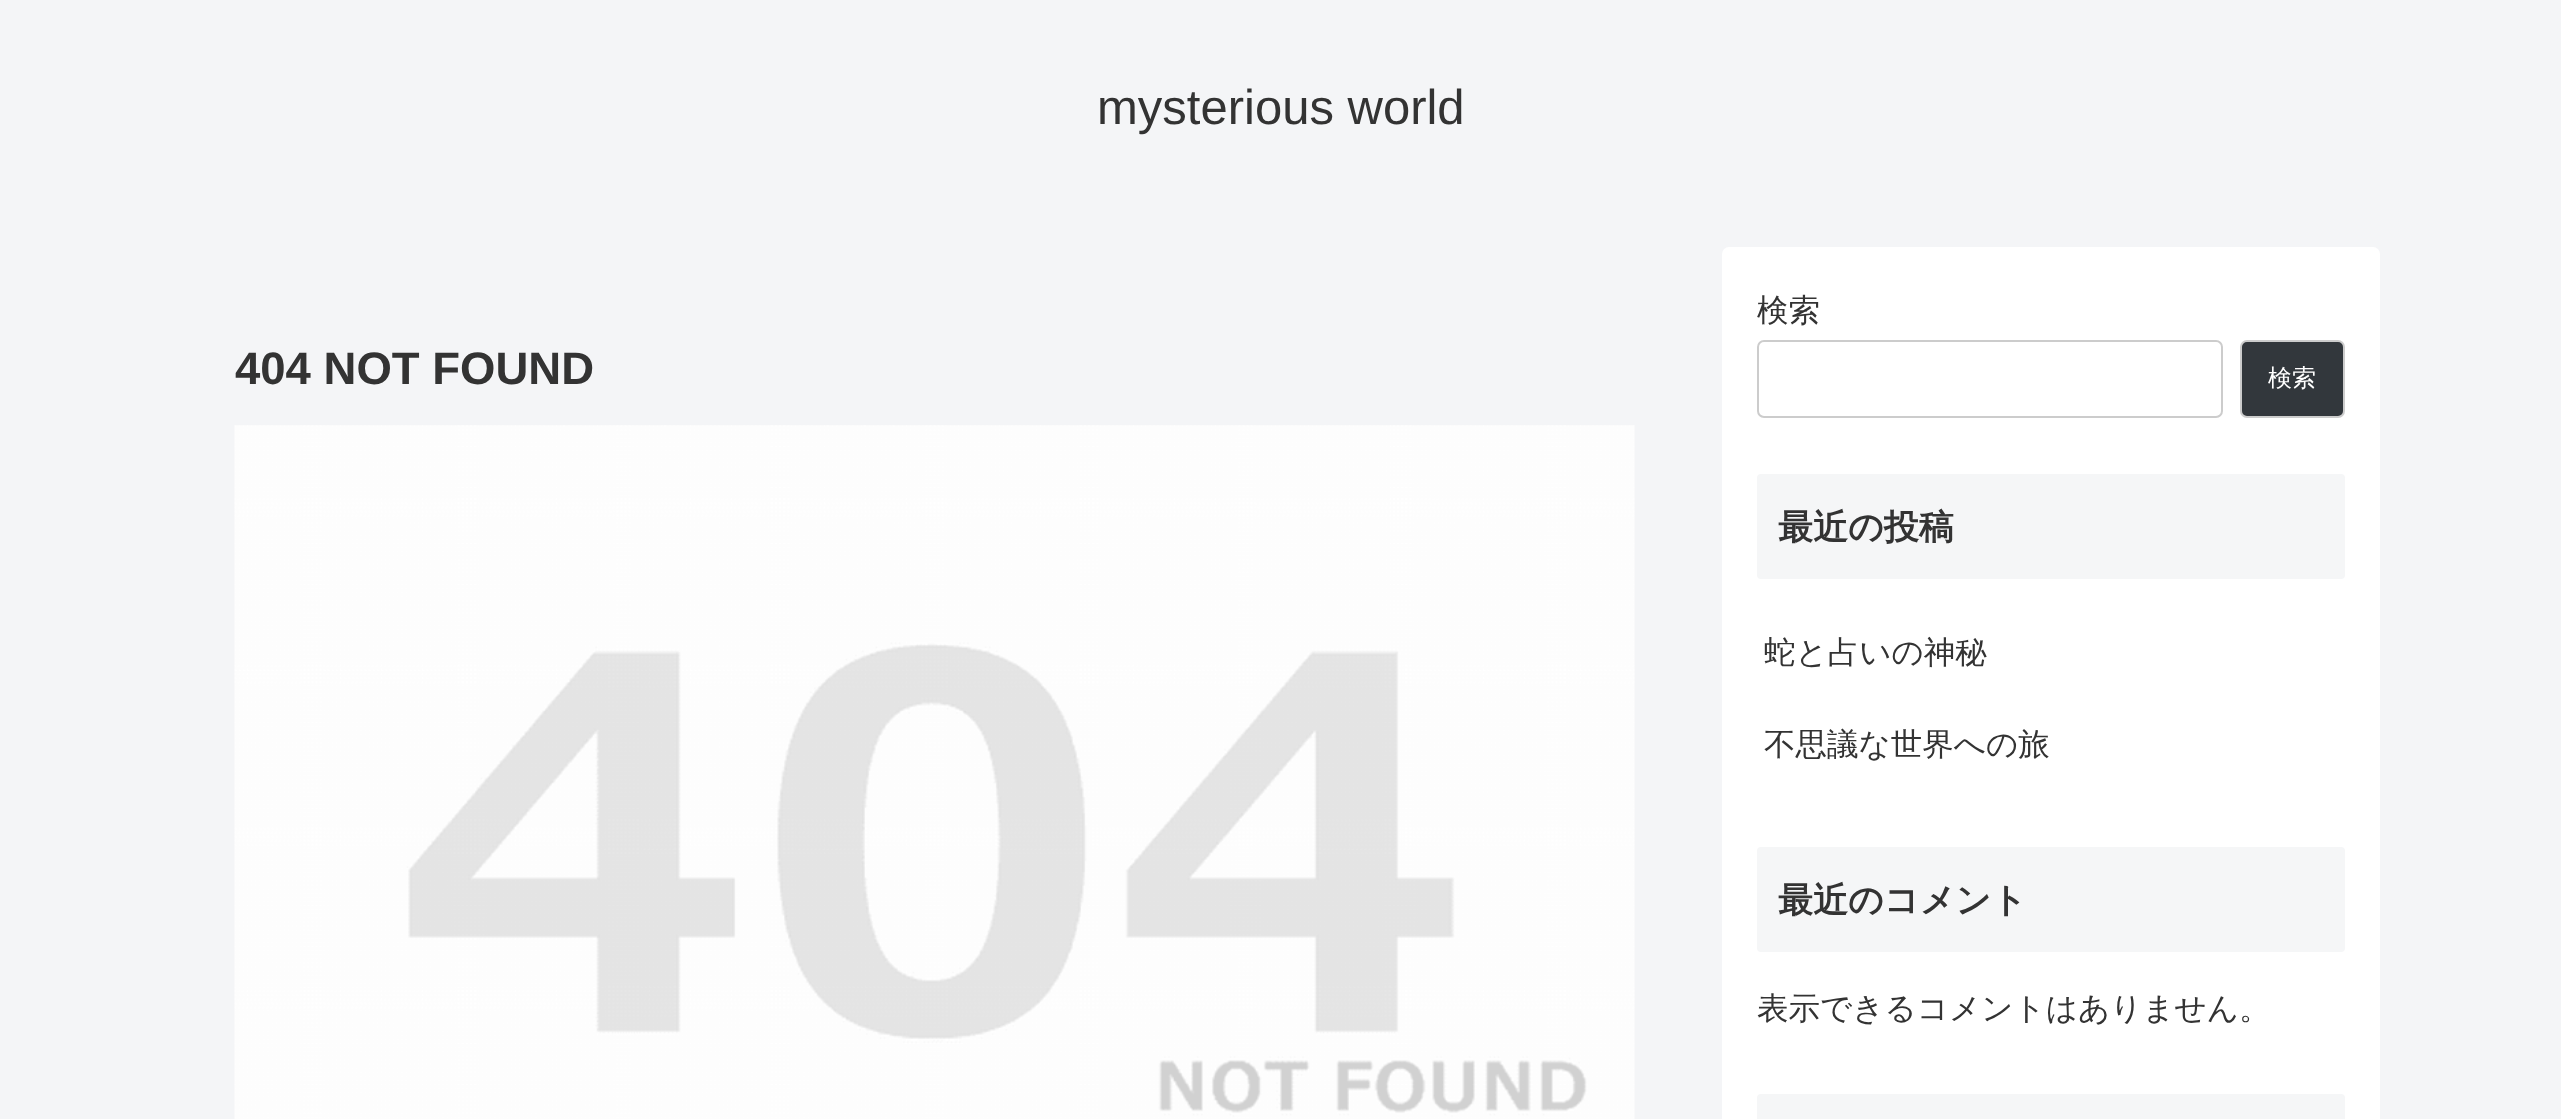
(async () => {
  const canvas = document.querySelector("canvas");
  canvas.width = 2561;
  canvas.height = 1119;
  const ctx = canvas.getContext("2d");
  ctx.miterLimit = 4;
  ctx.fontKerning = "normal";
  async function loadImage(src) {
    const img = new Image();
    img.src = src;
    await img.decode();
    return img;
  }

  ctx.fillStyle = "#f4f5f7";
  ctx.fillRect(0, 0, 2561, 1119);
  ctx.drawImage(await loadImage("img/1.png"), 234, 425, 1401, 694);
  ctx.fillStyle = "#ffffff";
  ctx.beginPath();
  ctx.roundRect(1722, 247, 658, 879, 7);
  ctx.fill();
  ctx.beginPath();
  ctx.roundRect(1758, 341, 464, 76, 6);
  ctx.strokeStyle = "#cccccc";
  ctx.lineWidth = 2;
  ctx.stroke();
  ctx.fillStyle = "#32373c";
  ctx.beginPath();
  ctx.roundRect(2241, 341, 103, 76, 6);
  ctx.fill();
  ctx.stroke();
  ctx.fillStyle = "#f5f6f7";
  ctx.beginPath();
  ctx.roundRect(1757, 474, 588, 105, 4);
  ctx.fill();
  ctx.beginPath();
  ctx.roundRect(1757, 847, 588, 105, 4);
  ctx.fill();
  ctx.beginPath();
  ctx.roundRect(1757, 1094, 588, 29, 4);
  ctx.fill();
  ctx.font = "49px Liberation Sans";
  ctx.fillStyle = "#333333";
  ctx.fillText("mysterious world", 1097, 124);
  ctx.font = "bold 45.5px Liberation Sans";
  ctx.fillText("404 NOT FOUND", 235, 384);
  ctx.font = "500 31.5px WenQuanYi Zen Hei";
  ctx.fillText("検索", 1757, 321);
  ctx.font = "500 24px WenQuanYi Zen Hei";
  ctx.fillStyle = "#ffffff";
  ctx.fillText("検索", 2268, 386);
  ctx.font = "bold 35px WenQuanYi Zen Hei";
  ctx.fillStyle = "#333333";
  ctx.fillText("最近の投稿", 1778, 539);
  ctx.font = "500 31.5px WenQuanYi Zen Hei";
  ctx.fillText("蛇と占いの神秘", 1764, 663);
  ctx.fillText("不思議な世界への旅", 1764, 755);
  ctx.font = "bold 35px WenQuanYi Zen Hei";
  ctx.fillText("最近のコメント", 1778, 912);
  ctx.font = "500 31.5px WenQuanYi Zen Hei";
  ctx.fillText("表示できるコメントはありません。", 1757, 1019);
})();
